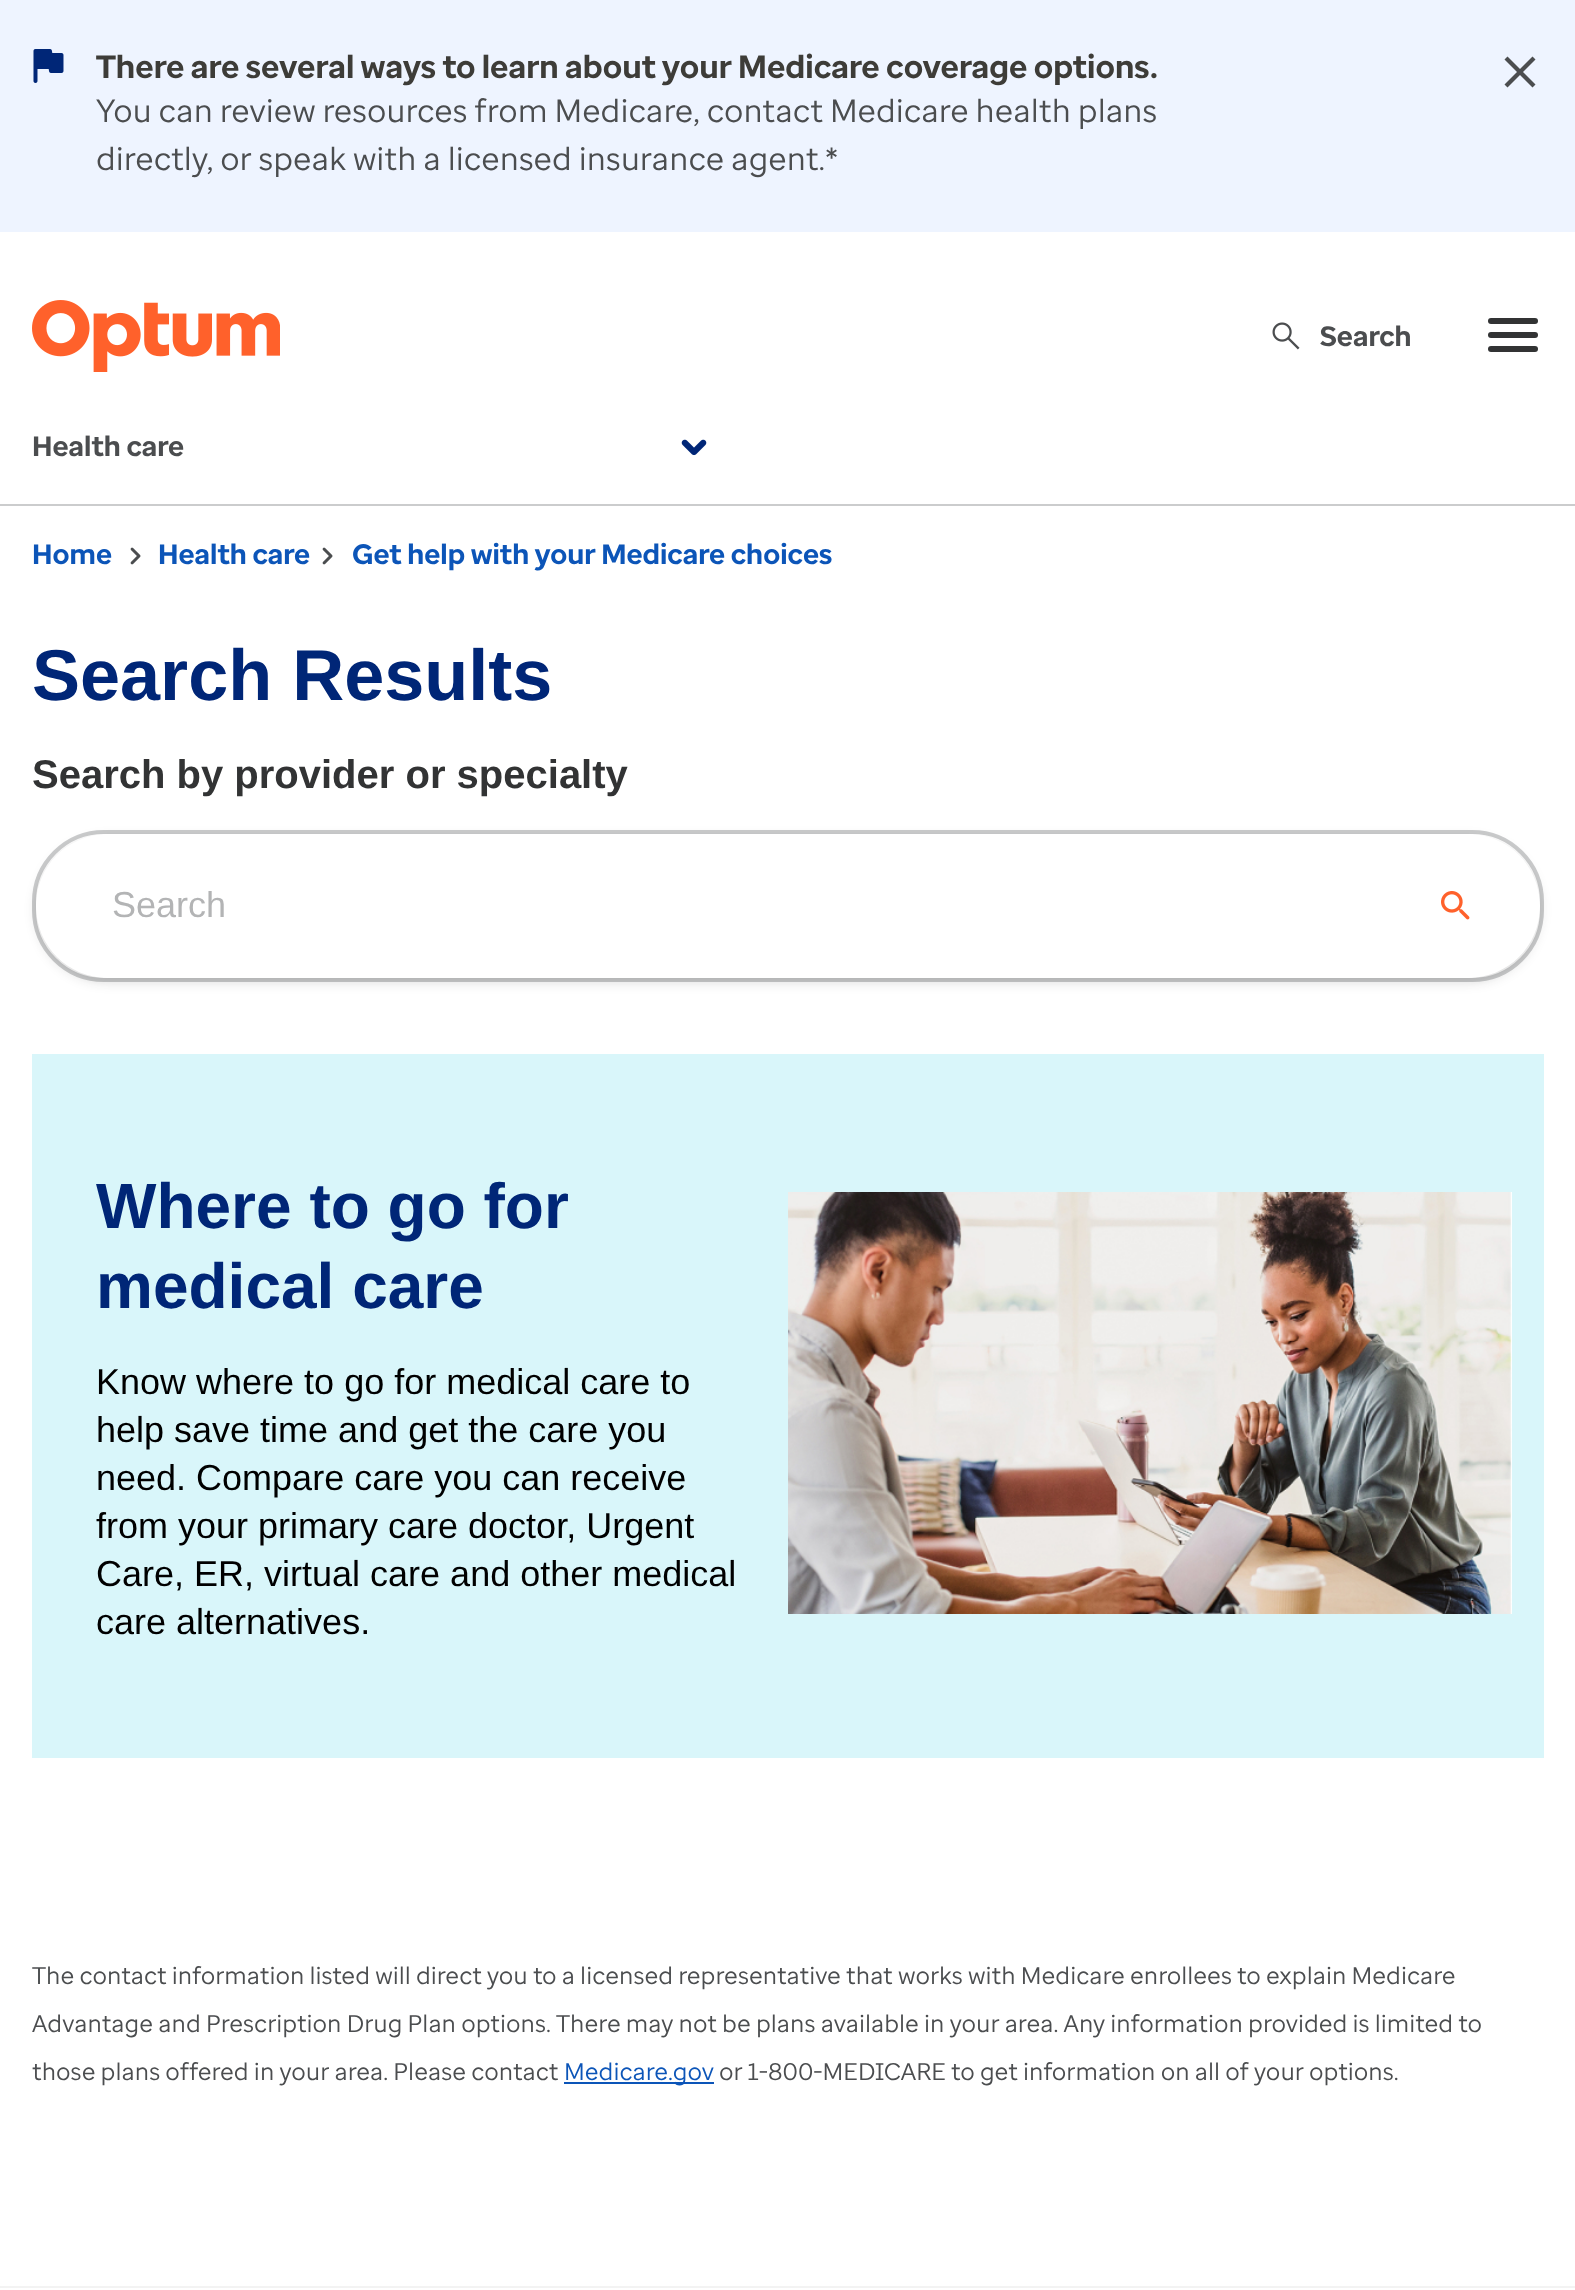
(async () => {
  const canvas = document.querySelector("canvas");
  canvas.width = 1575;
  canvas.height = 2290;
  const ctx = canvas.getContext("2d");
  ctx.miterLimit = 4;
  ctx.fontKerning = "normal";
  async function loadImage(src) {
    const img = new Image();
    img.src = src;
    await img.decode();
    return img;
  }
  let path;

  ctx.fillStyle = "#ffffff";
  ctx.fillRect(0, 0, 1575, 2290);
  ctx.fillStyle = "#eef4ff";
  ctx.fillRect(0, 0, 1575, 232);
  ctx.drawImage(await loadImage("img/1.png"), 33, 49, 31, 34);
  ctx.fillStyle = "#4b4d4f";
  path = new Path2D("M1504.5 84.5L1532.5 56.5L1535.5 59.5L1507.5 87.5Z");
  ctx.fill(path);
  path = new Path2D("M1532.5 87.5L1504.5 59.5L1507.5 56.5L1535.5 84.5Z");
  ctx.fill(path);
  ctx.drawImage(await loadImage("img/2.png"), 32, 300, 248, 72);
  ctx.drawImage(await loadImage("img/3.png"), 1272, 322, 28, 28);
  ctx.fillStyle = "#323334";
  ctx.beginPath();
  ctx.roundRect(1488, 318, 50, 6, 3);
  ctx.fill();
  ctx.beginPath();
  ctx.roundRect(1488, 332, 50, 6, 3);
  ctx.fill();
  ctx.beginPath();
  ctx.roundRect(1488, 346, 50, 6, 3);
  ctx.fill();
  ctx.fillStyle = "#cbcccd";
  ctx.fillRect(0, 504, 1575, 2);
  ctx.drawImage(await loadImage("img/4.png"), 681, 439, 26, 17);
  ctx.drawImage(await loadImage("img/5.png"), 130, 547, 11, 18);
  ctx.drawImage(await loadImage("img/5.png"), 322, 547, 11, 18);
  ctx.beginPath();
  ctx.roundRect(34, 832, 1508, 148, 70);
  ctx.strokeStyle = "#cbcccd";
  ctx.lineWidth = 4;
  ctx.stroke();
  ctx.save();
  path = new Path2D("M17 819H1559V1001H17ZM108 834H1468C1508 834 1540 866 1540 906C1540 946 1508 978 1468 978H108C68 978 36 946 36 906C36 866 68 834 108 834Z");
  ctx.clip(path, "evenodd");
  ctx.fillStyle = "rgba(25, 25, 26, 0.16)";
  ctx.filter = "blur(6px)";
  ctx.beginPath();
  ctx.roundRect(36, 838, 1504, 144, 72);
  ctx.fill();
  ctx.filter = "none";
  ctx.restore();
  ctx.drawImage(await loadImage("img/6.png"), 1441, 891, 29, 29);
  ctx.fillStyle = "#d9f6fa";
  ctx.fillRect(32, 1054, 1512, 704);
  ctx.drawImage(await loadImage("img/7.png"), 788, 1192, 724, 422);
  ctx.fillStyle = "#0c55b8";
  ctx.fillRect(564, 2082, 150, 2);
  ctx.fillStyle = "#f3f3f3";
  ctx.fillRect(0, 2286, 1575, 2);
  ctx.font = "bold 32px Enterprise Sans";
  ctx.fillStyle = "#3d3c38";
  ctx.fillText("There are several ways to learn about your Medicare coverage options.", 96, 78);
  ctx.font = "32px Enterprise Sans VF";
  ctx.fillStyle = "#4b4d4f";
  ctx.fillText("You can review resources from Medicare, contact Medicare health plans", 96, 122);
  ctx.fillText("directly, or speak with a licensed insurance agent.*", 96, 170);
  ctx.font = "bold 28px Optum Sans";
  ctx.fillText("Search", 1320, 346);
  ctx.font = "bold 28px Enterprise Sans";
  ctx.fillText("Health care", 32, 456);
  ctx.fillStyle = "#0c55b8";
  for (const [text, x, y] of [
    ["Home", 32, 564],
    ["Health care", 158, 564],
    ["Get help with your Medicare choices", 352, 564],
  ]) {
    ctx.fillText(text, x, y);
  }
  ctx.font = "bold 72px Liberation Sans";
  ctx.fillStyle = "#002677";
  ctx.fillText("Search Results", 32, 700);
  ctx.font = "bold 40px Liberation Sans";
  ctx.fillStyle = "#323334";
  ctx.fillText("Search by provider or specialty", 32, 788);
  ctx.font = "36px Liberation Sans";
  ctx.fillStyle = "#b3b4b5";
  ctx.fillText("Search", 112, 917);
  ctx.font = "bold 64px Liberation Sans";
  ctx.fillStyle = "#002677";
  ctx.fillText("Where to go for", 96, 1228);
  ctx.fillText("medical care", 96, 1308);
  ctx.font = "36px Liberation Sans";
  ctx.fillStyle = "#000000";
  for (const [text, x, y] of [
    ["Know where to go for medical care to", 96, 1394],
    ["help save time and get the care you", 96, 1442],
    ["need. Compare care you can receive", 96, 1490],
    ["from your primary care doctor, Urgent", 96, 1538],
    ["Care, ER, virtual care and other medical", 96, 1586],
    ["care alternatives.", 96, 1634],
  ]) {
    ctx.fillText(text, x, y);
  }
  ctx.font = "24px Enterprise Sans VF";
  ctx.fillStyle = "#4b4d4f";
  for (const [text, x, y] of [
    ["The contact information listed will direct you to a licensed representative that works with Medicare enrollees to explain Medicare", 32, 1984],
    ["Advantage and Prescription Drug Plan options. There may not be plans available in your area. Any information provided is limited to", 32, 2032],
    ["those plans offered in your area. Please contact", 32, 2080],
  ]) {
    ctx.fillText(text, x, y);
  }
  ctx.fillStyle = "#0c55b8";
  ctx.fillText("Medicare.gov", 564, 2080);
  ctx.fillStyle = "#4b4d4f";
  ctx.fillText("or 1-800-MEDICARE to get information on all of your options.", 719, 2080);
})();
